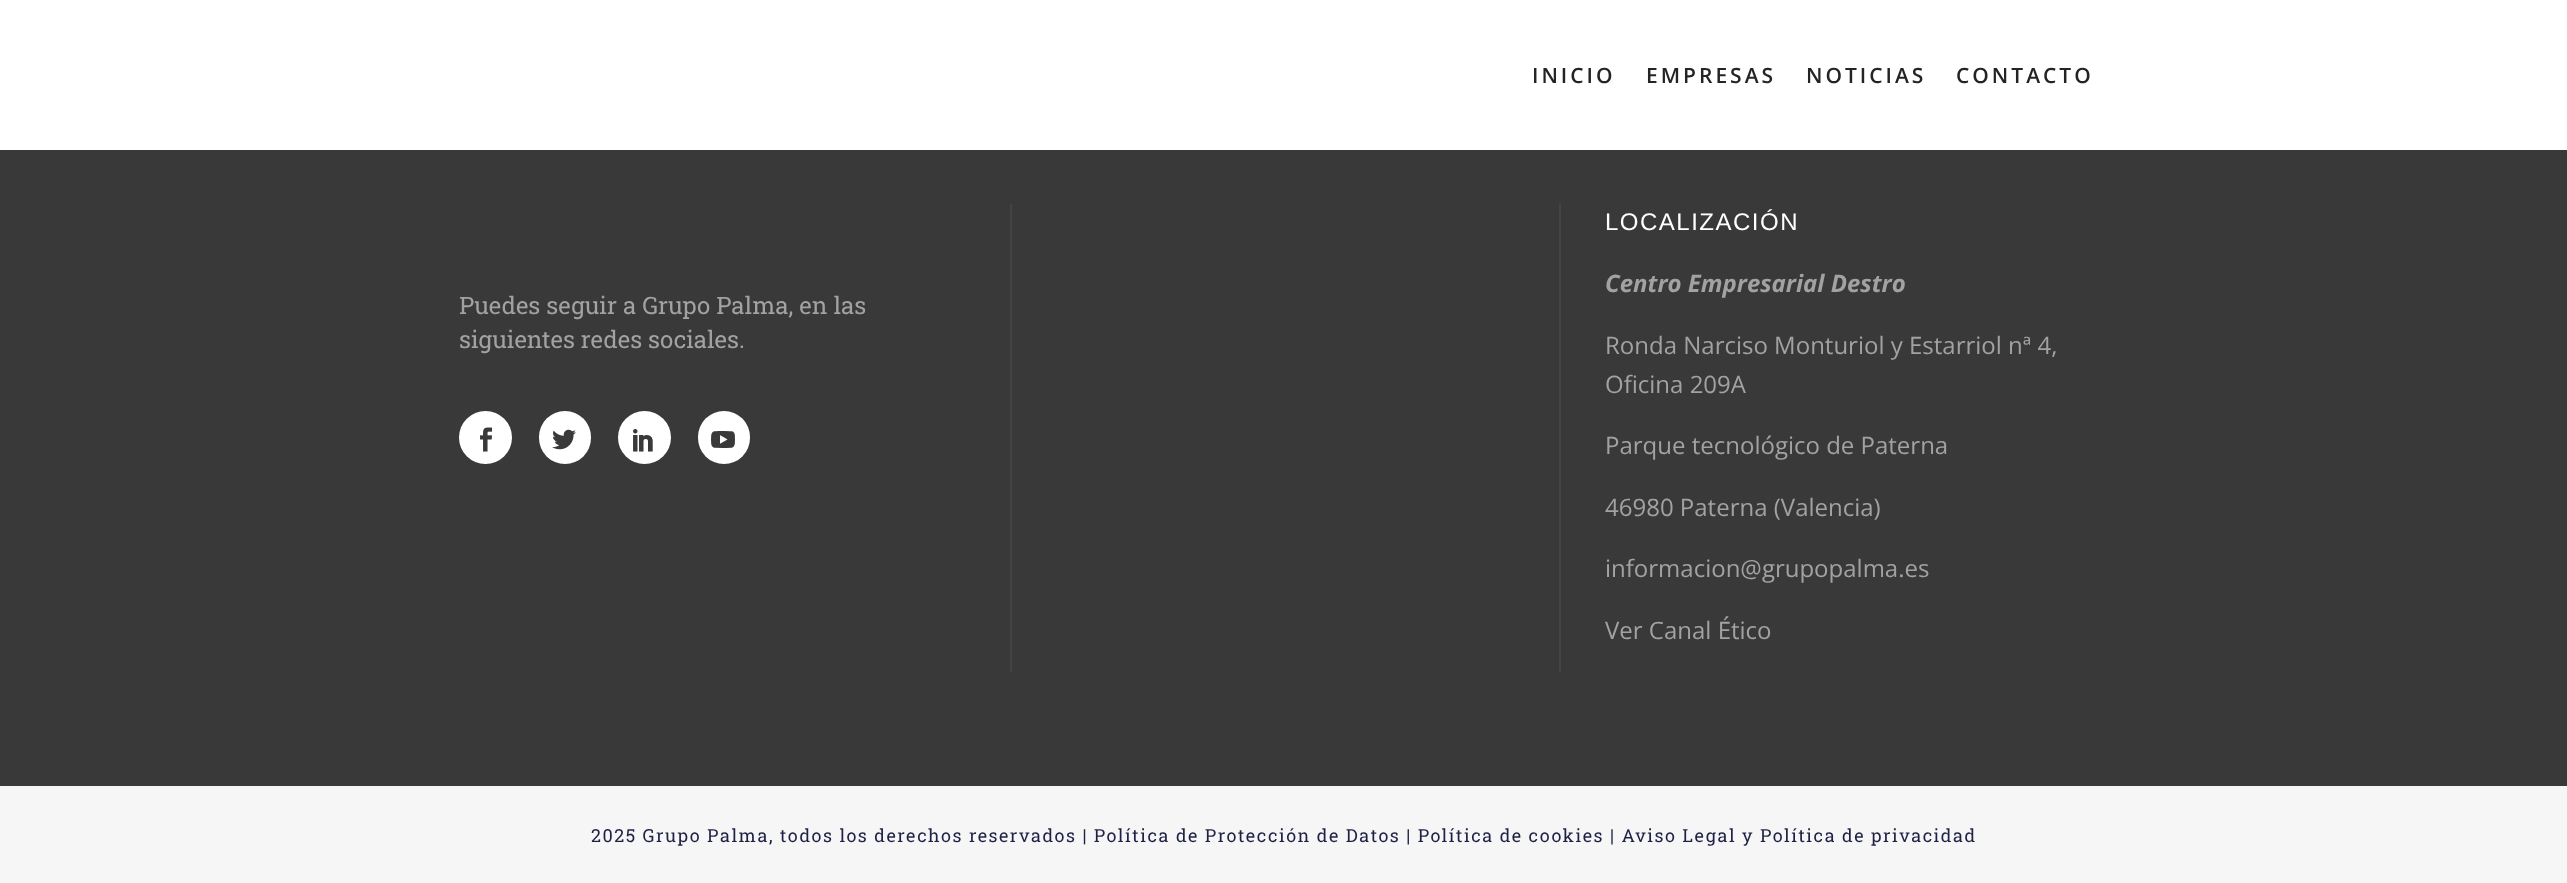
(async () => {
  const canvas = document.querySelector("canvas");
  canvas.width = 2567;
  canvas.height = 883;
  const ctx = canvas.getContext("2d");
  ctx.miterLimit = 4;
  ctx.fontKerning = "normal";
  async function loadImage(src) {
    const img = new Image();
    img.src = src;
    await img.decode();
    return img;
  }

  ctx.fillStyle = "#393939";
  ctx.fillRect(0, 0, 2567, 883);
  ctx.fillStyle = "#ffffff";
  ctx.fillRect(0, 0, 2567, 150);
  ctx.beginPath();
  ctx.arc(485.5, 437.5, 26.5, 0, Math.PI * 2);
  ctx.fill();
  ctx.drawImage(await loadImage("img/1.png"), 480, 427, 13, 25);
  ctx.beginPath();
  ctx.roundRect(539, 411, 52, 53, 26);
  ctx.fill();
  ctx.drawImage(await loadImage("img/2.png"), 552, 429, 24, 21);
  ctx.beginPath();
  ctx.arc(644.5, 437.5, 26.5, 0, Math.PI * 2);
  ctx.fill();
  ctx.drawImage(await loadImage("img/3.png"), 633, 429, 20, 23);
  ctx.beginPath();
  ctx.roundRect(698, 411, 52, 53, 26);
  ctx.fill();
  ctx.drawImage(await loadImage("img/4.png"), 711, 431, 24, 17);
  for (const [x, y, w, h, color] of [
    [1010, 204, 2, 468, "#444444"],
    [1559, 204, 2, 468, "#444444"],
    [0, 786, 2567, 97, "#f6f6f6"],
  ]) {
    ctx.fillStyle = color;
    ctx.fillRect(x, y, w, h);
  }
  ctx.letterSpacing = "3px";
  ctx.font = "600 21px Open Sans";
  ctx.fillStyle = "#242424";
  for (const [text, x, y] of [
    ["INICIO", 1532, 83],
    ["EMPRESAS", 1646, 83],
    ["NOTICIAS", 1806, 83],
    ["CONTACTO", 1956, 83],
  ]) {
    ctx.fillText(text, x, y);
  }
  ctx.letterSpacing = "0px";
  ctx.font = "24px Roboto Slab";
  ctx.fillStyle = "#a2a2a2";
  ctx.fillText("Puedes seguir a Grupo Palma, en las", 459, 314);
  ctx.fillText("siguientes redes sociales.", 459, 348);
  ctx.letterSpacing = "1.5px";
  ctx.font = "24px Liberation Sans";
  ctx.fillStyle = "#ffffff";
  ctx.fillText("LOCALIZACIÓN", 1605, 230);
  ctx.letterSpacing = "0px";
  ctx.font = "italic bold 24px Open Sans";
  ctx.fillStyle = "#a2a2a2";
  ctx.fillText("Centro Empresarial Destro", 1605, 292);
  ctx.font = "24px Open Sans";
  for (const [text, x, y] of [
    ["Ronda Narciso Monturiol y Estarriol nª 4,", 1605, 354],
    ["Oficina 209A", 1605, 393],
    ["Parque tecnológico de Paterna", 1605, 454],
    ["46980 Paterna (Valencia)", 1605, 516],
    ["informacion@grupopalma.es", 1605, 577],
    ["Ver Canal Ético", 1605, 639],
  ]) {
    ctx.fillText(text, x, y);
  }
  ctx.letterSpacing = "1.5px";
  ctx.font = "18px Roboto Slab";
  ctx.fillStyle = "#1e2145";
  ctx.fillText("2025 Grupo Palma, todos los derechos reservados | Política de Protección de Datos | Política de cookies | Aviso Legal y Política de privacidad", 591, 842);
})();
